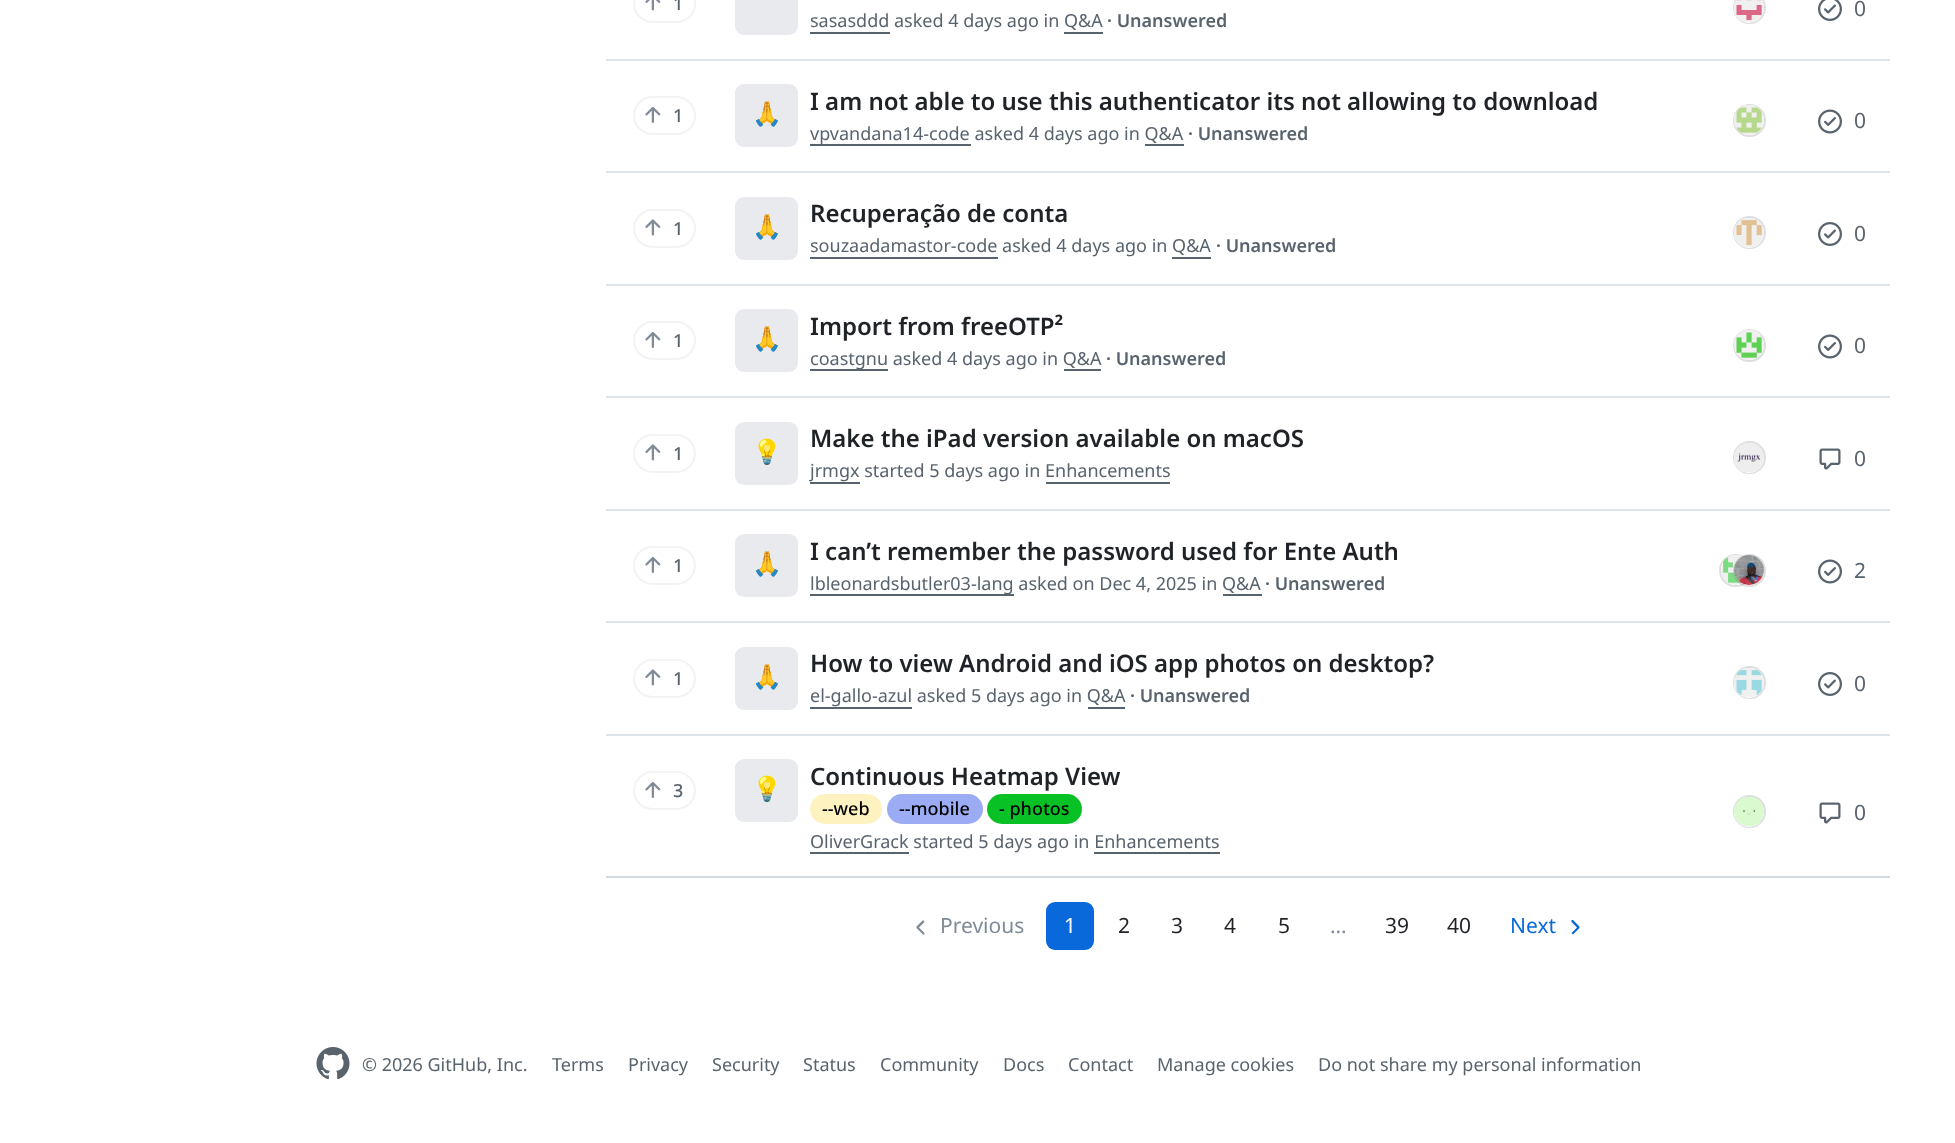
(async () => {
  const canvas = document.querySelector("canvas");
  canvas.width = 1955;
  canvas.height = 1143;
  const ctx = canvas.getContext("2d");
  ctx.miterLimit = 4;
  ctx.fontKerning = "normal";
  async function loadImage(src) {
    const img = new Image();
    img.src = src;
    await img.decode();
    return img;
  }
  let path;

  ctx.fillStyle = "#ffffff";
  ctx.fillRect(0, 0, 1955, 1143);
  ctx.beginPath();
  ctx.roundRect(634, -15, 61, 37, 18.5);
  ctx.strokeStyle = "#f2f3f5";
  ctx.lineWidth = 2;
  ctx.stroke();
  ctx.drawImage(await loadImage("img/1.png"), 645, 0, 16, 11);
  ctx.fillStyle = "#e8eaed";
  ctx.beginPath();
  ctx.roundRect(735, -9, 63, 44, 9);
  ctx.fill();
  ctx.beginPath();
  ctx.arc(1749.5, 7.5, 15.5, 0, Math.PI * 2);
  ctx.strokeStyle = "#dddedf";
  ctx.stroke();
  ctx.fillStyle = "#ffffff";
  ctx.beginPath();
  ctx.arc(1749, 8, 15, 0, Math.PI * 2);
  ctx.fill();
  ctx.drawImage(await loadImage("img/2.png"), 1734, 0, 30, 22);
  ctx.drawImage(await loadImage("img/3.png"), 1818, 0, 24, 21);
  for (const [x, y, w, h, color] of [
    [810, 32, 80, 2, "#59636e"],
    [1064, 32, 39, 2, "#59636e"],
    [606, 59, 1284, 2, "#dfe4e9"],
  ]) {
    ctx.fillStyle = color;
    ctx.fillRect(x, y, w, h);
  }
  ctx.beginPath();
  ctx.roundRect(634, 97, 61, 37, 18.5);
  ctx.strokeStyle = "#f2f3f5";
  ctx.stroke();
  ctx.drawImage(await loadImage("img/4.png"), 645, 106, 16, 17);
  ctx.fillStyle = "#e8eaed";
  ctx.beginPath();
  ctx.roundRect(735, 84, 63, 63, 9);
  ctx.fill();
  ctx.fillStyle = "#59636e";
  ctx.fillRect(810, 144, 161, 2);
  ctx.fillRect(1145, 144, 39, 2);
  ctx.beginPath();
  ctx.arc(1749.5, 120.5, 15.5, 0, Math.PI * 2);
  ctx.strokeStyle = "#dddedf";
  ctx.stroke();
  ctx.fillStyle = "#ffffff";
  ctx.beginPath();
  ctx.arc(1749, 120, 15, 0, Math.PI * 2);
  ctx.fill();
  ctx.drawImage(await loadImage("img/5.png"), 1734, 105, 30, 30);
  ctx.drawImage(await loadImage("img/6.png"), 1818, 109, 24, 25);
  ctx.fillStyle = "#dfe4e9";
  ctx.fillRect(606, 171, 1284, 2);
  ctx.beginPath();
  ctx.roundRect(634, 210, 61, 37, 18.5);
  ctx.strokeStyle = "#f2f3f5";
  ctx.stroke();
  ctx.drawImage(await loadImage("img/7.png"), 645, 219, 16, 17);
  ctx.fillStyle = "#e8eaed";
  ctx.beginPath();
  ctx.roundRect(735, 197, 63, 63, 9);
  ctx.fill();
  ctx.fillStyle = "#59636e";
  ctx.fillRect(810, 257, 188, 2);
  ctx.fillRect(1172, 257, 39, 2);
  ctx.beginPath();
  ctx.arc(1749.5, 232.5, 15.5, 0, Math.PI * 2);
  ctx.strokeStyle = "#dddedf";
  ctx.stroke();
  ctx.fillStyle = "#ffffff";
  ctx.beginPath();
  ctx.arc(1749, 233, 15, 0, Math.PI * 2);
  ctx.fill();
  ctx.drawImage(await loadImage("img/8.png"), 1734, 218, 30, 29);
  ctx.drawImage(await loadImage("img/9.png"), 1818, 222, 24, 24);
  ctx.fillStyle = "#dfe4e9";
  ctx.fillRect(606, 284, 1284, 2);
  ctx.beginPath();
  ctx.roundRect(634, 322, 61, 37, 18.5);
  ctx.strokeStyle = "#f2f3f5";
  ctx.stroke();
  ctx.drawImage(await loadImage("img/4.png"), 645, 331, 16, 17);
  ctx.fillStyle = "#e8eaed";
  ctx.beginPath();
  ctx.roundRect(735, 309, 63, 63, 9);
  ctx.fill();
  ctx.fillStyle = "#59636e";
  ctx.fillRect(810, 369, 78, 2);
  ctx.fillRect(1064, 369, 37, 2);
  ctx.beginPath();
  ctx.arc(1749.5, 345.5, 15.5, 0, Math.PI * 2);
  ctx.strokeStyle = "#dddedf";
  ctx.stroke();
  ctx.fillStyle = "#ffffff";
  ctx.beginPath();
  ctx.arc(1749, 345, 15, 0, Math.PI * 2);
  ctx.fill();
  ctx.drawImage(await loadImage("img/10.png"), 1734, 330, 30, 30);
  ctx.drawImage(await loadImage("img/6.png"), 1818, 334, 24, 25);
  ctx.fillStyle = "#dfe4e9";
  ctx.fillRect(606, 396, 1284, 2);
  ctx.beginPath();
  ctx.roundRect(634, 435, 61, 37, 18.5);
  ctx.strokeStyle = "#f2f3f5";
  ctx.stroke();
  ctx.drawImage(await loadImage("img/7.png"), 645, 444, 16, 17);
  ctx.fillStyle = "#e8eaed";
  ctx.beginPath();
  ctx.roundRect(735, 422, 63, 63, 9);
  ctx.fill();
  ctx.fillStyle = "#59636e";
  ctx.fillRect(810, 482, 50, 2);
  ctx.fillRect(1046, 482, 124, 2);
  ctx.beginPath();
  ctx.arc(1749.5, 457.5, 15.5, 0, Math.PI * 2);
  ctx.strokeStyle = "#dddedf";
  ctx.stroke();
  ctx.fillStyle = "#ffffff";
  ctx.beginPath();
  ctx.arc(1749, 458, 15, 0, Math.PI * 2);
  ctx.fill();
  ctx.drawImage(await loadImage("img/11.png"), 1734, 443, 30, 29);
  ctx.drawImage(await loadImage("img/12.png"), 1819, 448, 22, 22);
  ctx.fillStyle = "#dfe4e9";
  ctx.fillRect(606, 509, 1284, 2);
  ctx.beginPath();
  ctx.roundRect(634, 547, 61, 37, 18.5);
  ctx.strokeStyle = "#f2f3f5";
  ctx.stroke();
  ctx.drawImage(await loadImage("img/4.png"), 645, 556, 16, 17);
  ctx.fillStyle = "#e8eaed";
  ctx.beginPath();
  ctx.roundRect(735, 534, 63, 63, 9);
  ctx.fill();
  ctx.fillStyle = "#59636e";
  ctx.fillRect(810, 594, 204, 2);
  ctx.fillRect(1223, 594, 39, 2);
  ctx.beginPath();
  ctx.arc(1735.5, 570.5, 15.5, 0, Math.PI * 2);
  ctx.strokeStyle = "#dddedf";
  ctx.stroke();
  ctx.fillStyle = "#ffffff";
  ctx.beginPath();
  ctx.arc(1736, 570, 15, 0, Math.PI * 2);
  ctx.fill();
  ctx.drawImage(await loadImage("img/13.png"), 1721, 555, 22, 30);
  ctx.beginPath();
  ctx.arc(1749.5, 570.5, 15.5, 0, Math.PI * 2);
  ctx.strokeStyle = "rgba(31, 35, 40, 0.15)";
  ctx.stroke();
  ctx.beginPath();
  ctx.arc(1749, 570, 15, 0, Math.PI * 2);
  ctx.fill();
  ctx.drawImage(await loadImage("img/14.png"), 1734, 555, 30, 30);
  ctx.drawImage(await loadImage("img/6.png"), 1818, 559, 24, 25);
  ctx.fillStyle = "#dfe4e9";
  ctx.fillRect(606, 621, 1284, 2);
  ctx.beginPath();
  ctx.roundRect(634, 660, 61, 37, 18.5);
  ctx.strokeStyle = "#f2f3f5";
  ctx.stroke();
  ctx.drawImage(await loadImage("img/7.png"), 645, 669, 16, 17);
  ctx.fillStyle = "#e8eaed";
  ctx.beginPath();
  ctx.roundRect(735, 647, 63, 63, 9);
  ctx.fill();
  ctx.fillStyle = "#59636e";
  ctx.fillRect(810, 707, 102, 2);
  ctx.fillRect(1088, 707, 37, 2);
  ctx.beginPath();
  ctx.arc(1749.5, 682.5, 15.5, 0, Math.PI * 2);
  ctx.strokeStyle = "#dddedf";
  ctx.stroke();
  ctx.fillStyle = "#ffffff";
  ctx.beginPath();
  ctx.arc(1749, 683, 15, 0, Math.PI * 2);
  ctx.fill();
  ctx.drawImage(await loadImage("img/15.png"), 1734, 668, 30, 29);
  ctx.drawImage(await loadImage("img/9.png"), 1818, 672, 24, 24);
  ctx.fillStyle = "#dfe4e9";
  ctx.fillRect(606, 734, 1284, 2);
  ctx.beginPath();
  ctx.roundRect(634, 772, 61, 37, 18.5);
  ctx.strokeStyle = "#f2f3f5";
  ctx.stroke();
  ctx.drawImage(await loadImage("img/4.png"), 645, 781, 16, 17);
  ctx.fillStyle = "#e8eaed";
  ctx.beginPath();
  ctx.roundRect(735, 759, 63, 63, 9);
  ctx.fill();
  ctx.fillStyle = "#fef2c0";
  ctx.beginPath();
  ctx.roundRect(810, 794, 72, 30, 15);
  ctx.fill();
  ctx.fillStyle = "#9babf4";
  ctx.beginPath();
  ctx.roundRect(887, 794, 96, 30, 15);
  ctx.fill();
  ctx.fillStyle = "#08c225";
  ctx.beginPath();
  ctx.roundRect(987, 794, 95, 30, 15);
  ctx.fill();
  ctx.fillStyle = "#59636e";
  ctx.fillRect(810, 852, 99, 2);
  ctx.fillRect(1094, 852, 126, 2);
  ctx.beginPath();
  ctx.arc(1749.5, 811.5, 15.5, 0, Math.PI * 2);
  ctx.strokeStyle = "#dddedf";
  ctx.stroke();
  ctx.fillStyle = "#ffffff";
  ctx.beginPath();
  ctx.arc(1749, 812, 15, 0, Math.PI * 2);
  ctx.fill();
  ctx.drawImage(await loadImage("img/16.png"), 1734, 797, 30, 30);
  ctx.drawImage(await loadImage("img/12.png"), 1819, 802, 22, 22);
  ctx.fillStyle = "#d1d9e0";
  ctx.fillRect(606, 876, 1284, 2);
  ctx.fillStyle = "#818b98";
  path = new Path2D("M924.5 934.5V933L919 927.5L924.5 922L923 920L916.5 926.5V928L923 934.5Z");
  ctx.fill(path);
  ctx.fillStyle = "#0969da";
  ctx.beginPath();
  ctx.roundRect(1046, 902, 48, 48, 9);
  ctx.fill();
  path = new Path2D("M1571.5 920V922L1577 927.5L1571.5 933L1573 934.5L1579.5 928V926.5L1573 920Z");
  ctx.fill(path);
  ctx.drawImage(await loadImage("img/17.png"), 316, 1047, 34, 33);
  ctx.font = "500 18px Noto Sans";
  ctx.fillStyle = "#59636e";
  ctx.fillText("1", 673, 10);
  ctx.font = "21px Noto Sans";
  ctx.fillText("0", 1854, 16);
  ctx.font = "18px Noto Sans";
  ctx.fillText("sasasddd asked 4 days ago in Q&A", 810, 27);
  ctx.font = "600 18px Noto Sans";
  ctx.fillText("· Unanswered", 1107, 27);
  ctx.font = "500 18px Noto Sans";
  ctx.fillText("1", 673, 122);
  ctx.font = "24px Noto Color Emoji";
  ctx.fillText("🙏", 752, 122);
  ctx.font = "600 24px Noto Sans";
  ctx.fillStyle = "#1f2328";
  ctx.fillText("I am not able to use this authenticator its not allowing to download", 810, 110);
  ctx.font = "18px Noto Sans";
  ctx.fillStyle = "#59636e";
  ctx.fillText("vpvandana14-code asked 4 days ago in Q&A", 810, 140);
  ctx.font = "600 18px Noto Sans";
  ctx.fillText("· Unanswered", 1188, 140);
  ctx.font = "21px Noto Sans";
  ctx.fillText("0", 1854, 128);
  ctx.font = "500 18px Noto Sans";
  ctx.fillText("1", 673, 235);
  ctx.font = "24px Noto Color Emoji";
  ctx.fillText("🙏", 752, 235);
  ctx.font = "600 24px Noto Sans";
  ctx.fillStyle = "#1f2328";
  ctx.fillText("Recuperação de conta", 810, 222);
  ctx.font = "18px Noto Sans";
  ctx.fillStyle = "#59636e";
  ctx.fillText("souzaadamastor-code asked 4 days ago in Q&A", 810, 252);
  ctx.font = "600 18px Noto Sans";
  ctx.fillText("· Unanswered", 1216, 252);
  ctx.font = "21px Noto Sans";
  ctx.fillText("0", 1854, 241);
  ctx.font = "500 18px Noto Sans";
  ctx.fillText("1", 673, 347);
  ctx.font = "24px Noto Color Emoji";
  ctx.fillText("🙏", 752, 347);
  ctx.font = "600 24px Noto Sans";
  ctx.fillStyle = "#1f2328";
  ctx.fillText("Import from freeOTP²", 810, 335);
  ctx.font = "18px Noto Sans";
  ctx.fillStyle = "#59636e";
  ctx.fillText("coastgnu asked 4 days ago in Q&A", 810, 365);
  ctx.font = "600 18px Noto Sans";
  ctx.fillText("· Unanswered", 1106, 365);
  ctx.font = "21px Noto Sans";
  ctx.fillText("0", 1854, 353);
  ctx.font = "500 18px Noto Sans";
  ctx.fillText("1", 673, 460);
  ctx.font = "24px Noto Color Emoji";
  ctx.fillText("💡", 752, 460);
  ctx.font = "600 24px Noto Sans";
  ctx.fillStyle = "#1f2328";
  ctx.fillText("Make the iPad version available on macOS", 810, 447);
  ctx.font = "18px Noto Sans";
  ctx.fillStyle = "#59636e";
  ctx.fillText("jrmgx started 5 days ago in Enhancements", 810, 477);
  ctx.font = "21px Noto Sans";
  ctx.fillText("0", 1854, 466);
  ctx.font = "500 18px Noto Sans";
  ctx.fillText("1", 673, 572);
  ctx.font = "24px Noto Color Emoji";
  ctx.fillText("🙏", 752, 572);
  ctx.font = "600 24px Noto Sans";
  ctx.fillStyle = "#1f2328";
  ctx.fillText("I can’t remember the password used for Ente Auth", 810, 560);
  ctx.font = "18px Noto Sans";
  ctx.fillStyle = "#59636e";
  ctx.fillText("lbleonardsbutler03-lang asked on Dec 4, 2025 in Q&A", 810, 590);
  ctx.font = "600 18px Noto Sans";
  ctx.fillText("· Unanswered", 1265, 590);
  ctx.font = "21px Noto Sans";
  ctx.fillText("2", 1854, 578);
  ctx.font = "500 18px Noto Sans";
  ctx.fillText("1", 673, 685);
  ctx.font = "24px Noto Color Emoji";
  ctx.fillText("🙏", 752, 685);
  ctx.font = "600 24px Noto Sans";
  ctx.fillStyle = "#1f2328";
  ctx.fillText("How to view Android and iOS app photos on desktop?", 810, 672);
  ctx.font = "18px Noto Sans";
  ctx.fillStyle = "#59636e";
  ctx.fillText("el-gallo-azul asked 5 days ago in Q&A", 810, 702);
  ctx.font = "600 18px Noto Sans";
  ctx.fillText("· Unanswered", 1130, 702);
  ctx.font = "21px Noto Sans";
  ctx.fillText("0", 1854, 691);
  ctx.font = "500 18px Noto Sans";
  ctx.fillText("3", 673, 797);
  ctx.font = "24px Noto Color Emoji";
  ctx.fillText("💡", 752, 797);
  ctx.font = "600 24px Noto Sans";
  ctx.fillStyle = "#1f2328";
  ctx.fillText("Continuous Heatmap View", 810, 785);
  ctx.font = "500 18px Noto Sans";
  ctx.fillStyle = "#000000";
  for (const [text, x, y] of [
    ["--web", 822, 815],
    ["--mobile", 899, 815],
    ["- photos", 999, 815],
  ]) {
    ctx.fillText(text, x, y);
  }
  ctx.font = "18px Noto Sans";
  ctx.fillStyle = "#59636e";
  ctx.fillText("OliverGrack started 5 days ago in Enhancements", 810, 848);
  ctx.font = "21px Noto Sans";
  ctx.fillText("0", 1854, 820);
  ctx.fillStyle = "#818b98";
  ctx.fillText("Previous", 940, 933);
  ctx.fillStyle = "#ffffff";
  ctx.fillText("1", 1064, 933);
  ctx.fillStyle = "#1f2328";
  for (const [text, x, y] of [
    ["2", 1118, 933],
    ["3", 1171, 933],
    ["4", 1224, 933],
    ["5", 1278, 933],
  ]) {
    ctx.fillText(text, x, y);
  }
  ctx.fillStyle = "#818b98";
  ctx.fillText("…", 1330, 933);
  ctx.fillStyle = "#1f2328";
  ctx.fillText("39", 1385, 933);
  ctx.fillText("40", 1447, 933);
  ctx.fillStyle = "#0969da";
  ctx.fillText("Next", 1510, 933);
  ctx.font = "18px Noto Sans";
  ctx.fillStyle = "#59636e";
  for (const [text, x, y] of [
    ["© 2026 GitHub, Inc.", 362, 1071],
    ["Terms", 552, 1071],
    ["Privacy", 628, 1071],
    ["Security", 712, 1071],
    ["Status", 803, 1071],
    ["Community", 880, 1071],
    ["Docs", 1003, 1071],
    ["Contact", 1068, 1071],
    ["Manage cookies", 1157, 1071],
    ["Do not share my personal information", 1318, 1071],
  ]) {
    ctx.fillText(text, x, y);
  }
})();
